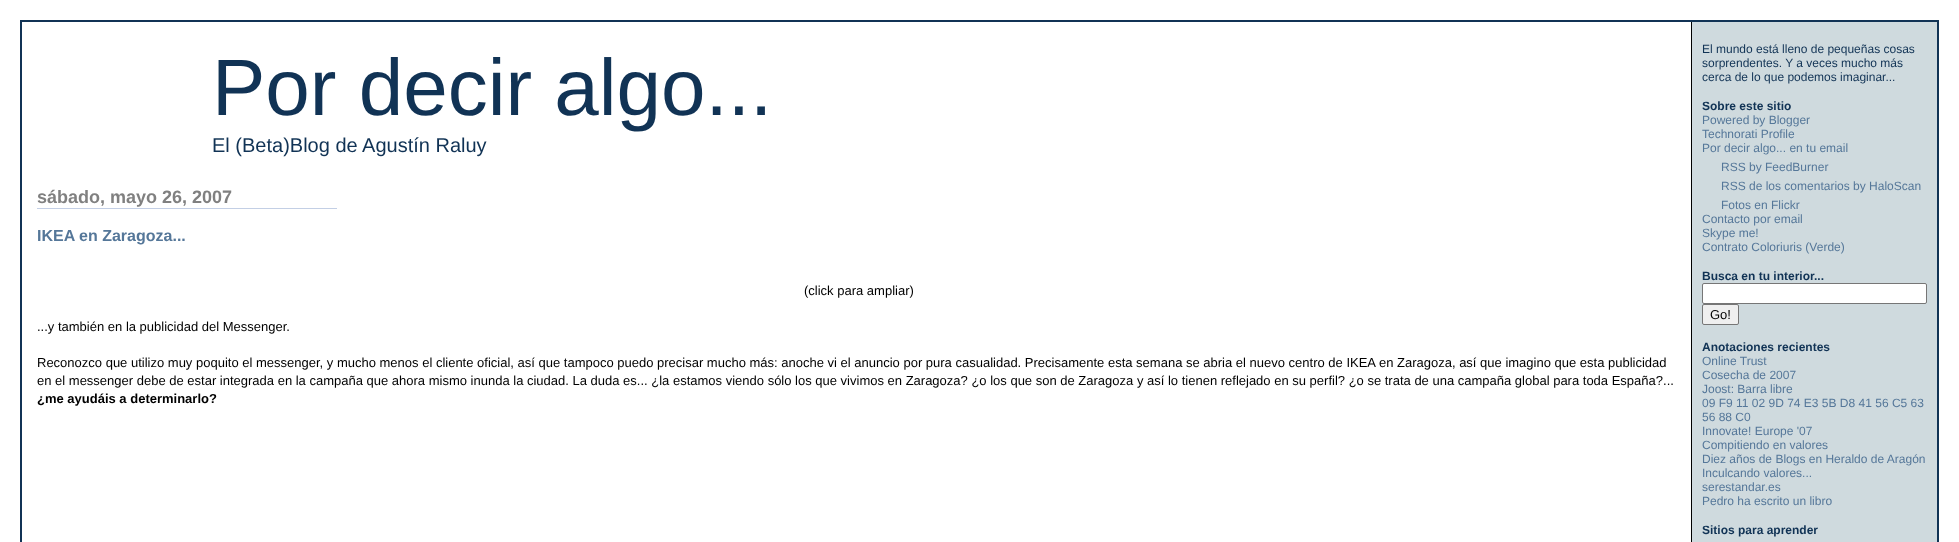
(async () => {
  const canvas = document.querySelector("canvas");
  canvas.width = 1959;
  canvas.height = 542;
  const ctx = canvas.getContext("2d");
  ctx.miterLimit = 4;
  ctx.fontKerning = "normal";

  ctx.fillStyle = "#ffffff";
  ctx.fillRect(0, 0, 1959, 542);
  ctx.strokeStyle = "#113355";
  ctx.lineWidth = 2;
  ctx.strokeRect(21, 21, 1917, 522);
  ctx.fillStyle = "#cfdade";
  ctx.fillRect(1692, 22, 245, 520);
  ctx.fillStyle = "#000000";
  ctx.fillRect(1691, 22, 1, 520);
  ctx.fillStyle = "#ffffff";
  ctx.beginPath();
  ctx.roundRect(1702.5, 283.5, 224, 20, 1.5);
  ctx.fill();
  ctx.strokeStyle = "#767676";
  ctx.lineWidth = 1;
  ctx.stroke();
  ctx.fillStyle = "#efefef";
  ctx.beginPath();
  ctx.roundRect(1702.5, 304.5, 36, 20, 1.5);
  ctx.fill();
  ctx.stroke();
  ctx.fillStyle = "#c3cfe5";
  ctx.fillRect(37, 208, 300, 1);
  ctx.font = "80px Liberation Sans";
  ctx.fillStyle = "#113355";
  ctx.fillText("Por decir algo...", 212, 115);
  ctx.font = "12px Liberation Sans";
  for (const [text, x, y] of [
    ["El mundo está lleno de pequeñas cosas", 1702, 53],
    ["sorprendentes. Y a veces mucho más", 1702, 67],
    ["cerca de lo que podemos imaginar...", 1702, 81],
  ]) {
    ctx.fillText(text, x, y);
  }
  ctx.font = "bold 12px Liberation Sans";
  ctx.fillText("Sobre este sitio", 1702, 110);
  ctx.font = "12px Liberation Sans";
  ctx.fillStyle = "#557799";
  for (const [text, x, y] of [
    ["Powered by Blogger", 1702, 124],
    ["Technorati Profile", 1702, 138],
    ["Por decir algo... en tu email", 1702, 152],
    ["RSS by FeedBurner", 1721, 171],
    ["RSS de los comentarios by HaloScan", 1721, 190],
    ["Fotos en Flickr", 1721, 209],
    ["Contacto por email", 1702, 223],
    ["Skype me!", 1702, 237],
    ["Contrato Coloriuris (Verde)", 1702, 251],
  ]) {
    ctx.fillText(text, x, y);
  }
  ctx.font = "bold 12px Liberation Sans";
  ctx.fillStyle = "#113355";
  ctx.fillText("Busca en tu interior...", 1702, 280);
  ctx.font = "13px Liberation Sans";
  ctx.fillStyle = "#000000";
  ctx.fillText("Go!", 1710, 319);
  ctx.font = "bold 12px Liberation Sans";
  ctx.fillStyle = "#113355";
  ctx.fillText("Anotaciones recientes", 1702, 351);
  ctx.font = "12px Liberation Sans";
  ctx.fillStyle = "#557799";
  for (const [text, x, y] of [
    ["Online Trust", 1702, 365],
    ["Cosecha de 2007", 1702, 379],
    ["Joost: Barra libre", 1702, 393],
    ["09 F9 11 02 9D 74 E3 5B D8 41 56 C5 63", 1702, 407],
    ["56 88 C0", 1702, 421],
    ["Innovate! Europe '07", 1702, 435],
    ["Compitiendo en valores", 1702, 449],
    ["Diez años de Blogs en Heraldo de Aragón", 1702, 463],
    ["Inculcando valores...", 1702, 477],
    ["serestandar.es", 1702, 491],
    ["Pedro ha escrito un libro", 1702, 505],
  ]) {
    ctx.fillText(text, x, y);
  }
  ctx.font = "bold 12px Liberation Sans";
  ctx.fillStyle = "#113355";
  ctx.fillText("Sitios para aprender", 1702, 534);
  ctx.font = "20px Liberation Sans";
  ctx.fillText("El (Beta)Blog de Agustín Raluy", 212, 152);
  ctx.font = "bold 18px Liberation Sans";
  ctx.fillStyle = "#808080";
  ctx.fillText("sábado, mayo 26, 2007", 37, 203);
  ctx.font = "bold 16px Liberation Sans";
  ctx.fillStyle = "#557799";
  ctx.fillText("IKEA en Zaragoza...", 37, 241);
  ctx.font = "13px Liberation Sans";
  ctx.fillStyle = "#000000";
  for (const [text, x, y] of [
    ["(click para ampliar)", 804, 295],
    ["...y también en la publicidad del Messenger.", 37, 331],
    ["Reconozco que utilizo muy poquito el messenger, y mucho menos el cliente oficial, así que tampoco puedo precisar mucho más: anoche vi el anuncio por pura casualidad. Precisamente esta semana se abria el nuevo centro de IKEA en Zaragoza, así que imagino que esta publicidad", 37, 367],
    ["en el messenger debe de estar integrada en la campaña que ahora mismo inunda la ciudad. La duda es... ¿la estamos viendo sólo los que vivimos en Zaragoza? ¿o los que son de Zaragoza y así lo tienen reflejado en su perfil? ¿o se trata de una campaña global para toda España?...", 37, 385],
  ]) {
    ctx.fillText(text, x, y);
  }
  ctx.font = "bold 13px Liberation Sans";
  ctx.fillText("¿me ayudáis a determinarlo?", 37, 403);
})();
